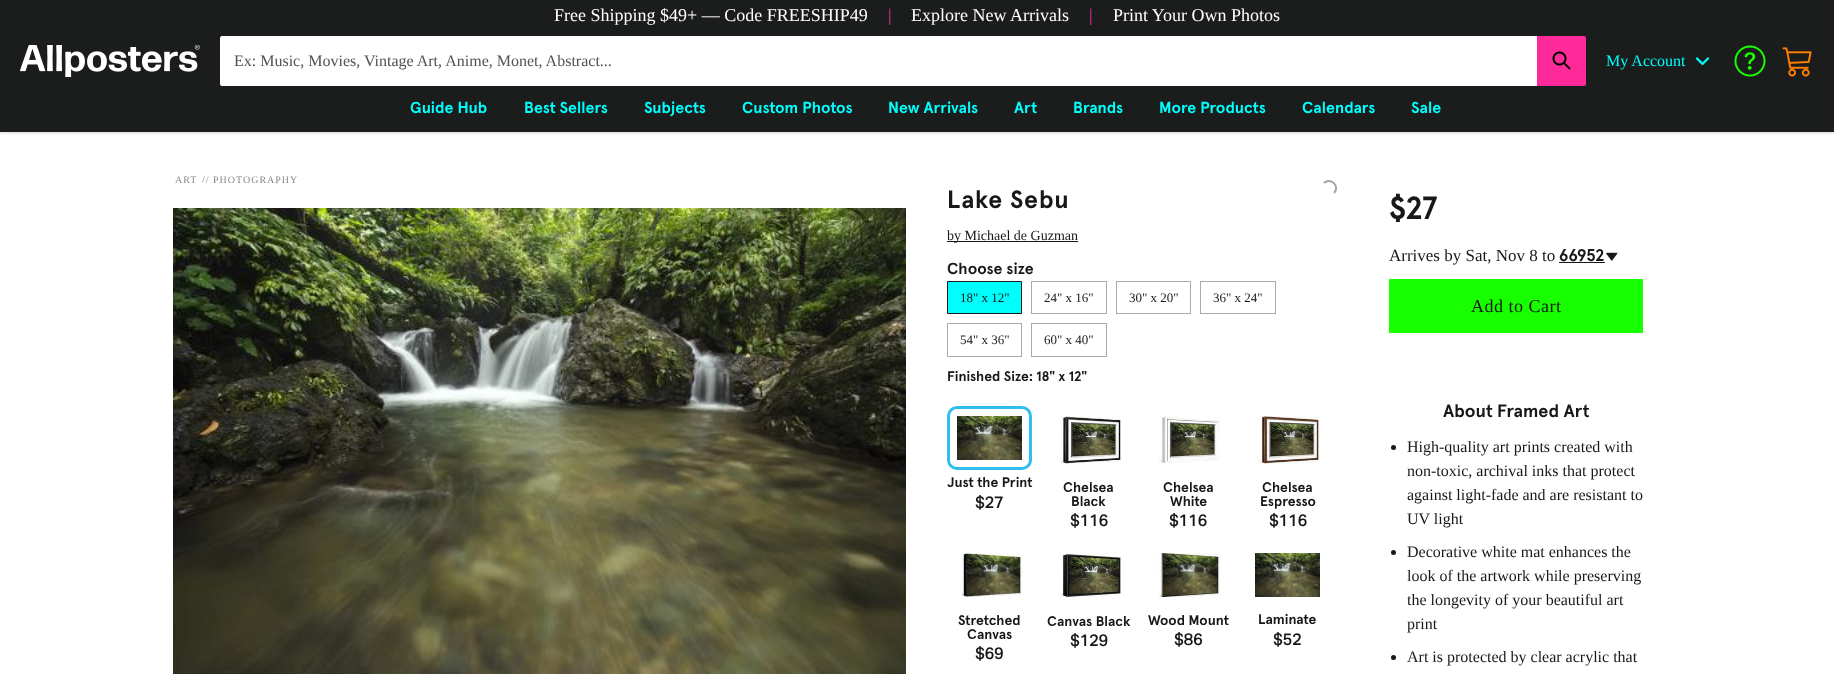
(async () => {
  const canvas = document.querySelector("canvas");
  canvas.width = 1834;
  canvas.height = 674;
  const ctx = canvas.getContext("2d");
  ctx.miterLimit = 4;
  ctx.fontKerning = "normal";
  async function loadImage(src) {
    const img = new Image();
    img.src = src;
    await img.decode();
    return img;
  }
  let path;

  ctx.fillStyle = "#ffffff";
  ctx.fillRect(0, 0, 1834, 674);
  ctx.fillStyle = "rgba(0, 0, 0, 0.06)";
  ctx.filter = "blur(1px)";
  ctx.beginPath();
  ctx.rect(0, 31, 1834, 102);
  ctx.fill();
  ctx.filter = "none";
  ctx.fillStyle = "rgba(0, 0, 0, 0.1)";
  ctx.filter = "blur(1.5px)";
  ctx.beginPath();
  ctx.rect(0, 31, 1834, 102);
  ctx.fill();
  ctx.filter = "none";
  ctx.fillStyle = "#1b1c1c";
  ctx.fillRect(0, 0, 1834, 132);
  ctx.drawImage(await loadImage("img/1.png"), 20, 45, 180, 32);
  ctx.fillStyle = "#ffffff";
  ctx.beginPath();
  ctx.roundRect(220, 36, 1317, 50, [2, 0, 0, 2]);
  ctx.fill();
  ctx.fillStyle = "#ff2a99";
  ctx.beginPath();
  ctx.roundRect(1537, 36, 49, 50, [0, 2, 2, 0]);
  ctx.fill();
  ctx.drawImage(await loadImage("img/2.png"), 1552, 51, 19, 19);
  ctx.drawImage(await loadImage("img/3.png"), 1695, 57, 15, 8);
  ctx.drawImage(await loadImage("img/4.png"), 1734, 45, 32, 32);
  ctx.drawImage(await loadImage("img/5.png"), 1782, 47, 30, 30);
  ctx.drawImage(await loadImage("img/6.png"), 173, 208, 733, 466);
  path = new Path2D("M1324 183C1330.5 176.5 1340.5 186.5 1334 193");
  ctx.strokeStyle = "#a3a3a3";
  ctx.lineWidth = 2;
  ctx.stroke(path);
  ctx.fillStyle = "#181818";
  ctx.fillRect(947, 241, 131, 1);
  ctx.fillStyle = "#00fffc";
  ctx.beginPath();
  ctx.rect(947.5, 281.5, 74, 32);
  ctx.fill();
  ctx.strokeStyle = "#1b1c1c";
  ctx.lineWidth = 1;
  ctx.stroke();
  ctx.strokeStyle = "#a7a9ac";
  ctx.strokeRect(1031.5, 281.5, 75, 32);
  ctx.strokeRect(1116.5, 281.5, 74, 32);
  ctx.strokeRect(1200.5, 281.5, 75, 32);
  ctx.strokeRect(947.5, 323.5, 74, 33);
  ctx.strokeRect(1031.5, 323.5, 75, 33);
  ctx.beginPath();
  ctx.roundRect(948.5, 407.5, 82, 61, 8.5);
  ctx.strokeStyle = "#30beef";
  ctx.lineWidth = 3;
  ctx.stroke();
  ctx.drawImage(await loadImage("img/7.png"), 957, 416, 65, 44);
  ctx.drawImage(await loadImage("img/8.png"), 1060, 416, 61, 48);
  ctx.drawImage(await loadImage("img/9.png"), 1159, 416, 61, 47);
  ctx.drawImage(await loadImage("img/10.png"), 1255, 416, 65, 48);
  ctx.drawImage(await loadImage("img/11.png"), 961, 553, 61, 44);
  ctx.drawImage(await loadImage("img/12.png"), 1060, 553, 61, 44);
  ctx.drawImage(await loadImage("img/13.png"), 1159, 553, 62, 44);
  ctx.drawImage(await loadImage("img/14.png"), 1255, 553, 65, 44);
  ctx.fillStyle = "#181818";
  ctx.fillRect(1559, 262, 46, 1);
  ctx.drawImage(await loadImage("img/15.png"), 1606, 252, 12, 9);
  ctx.fillStyle = "#18ff00";
  ctx.fillRect(1389, 279, 254, 54);
  ctx.fillStyle = "#181818";
  ctx.beginPath();
  ctx.arc(1393.5, 447.5, 2.5, 0, Math.PI * 2);
  ctx.fill();
  ctx.beginPath();
  ctx.arc(1393.5, 552.5, 2.5, 0, Math.PI * 2);
  ctx.fill();
  ctx.beginPath();
  ctx.arc(1393.5, 657.5, 2.5, 0, Math.PI * 2);
  ctx.fill();
  ctx.font = "18px Liberation Serif";
  ctx.fillStyle = "#ffffff";
  ctx.fillText("Free Shipping $49+ — Code FREESHIP49", 554, 21);
  ctx.fillStyle = "#ff2a99";
  ctx.fillText("|", 888, 21);
  ctx.fillStyle = "#ffffff";
  ctx.fillText("Explore New Arrivals", 911, 21);
  ctx.fillStyle = "#ff2a99";
  ctx.fillText("|", 1089, 21);
  ctx.fillStyle = "#ffffff";
  ctx.fillText("Print Your Own Photos", 1113, 21);
  ctx.font = "16px Liberation Serif";
  ctx.fillStyle = "#525252";
  ctx.fillText("Ex: Music, Movies, Vintage Art, Anime, Monet, Abstract...", 234, 66);
  ctx.fillStyle = "#00fffc";
  ctx.fillText("My Account", 1606, 66);
  ctx.font = "bold 16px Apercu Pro";
  for (const [text, x, y] of [
    ["Guide Hub", 410, 113],
    ["Best Sellers", 524, 113],
    ["Subjects", 644, 113],
    ["Custom Photos", 742, 113],
    ["New Arrivals", 888, 113],
    ["Art", 1014, 113],
    ["Brands", 1073, 113],
    ["More Products", 1159, 113],
    ["Calendars", 1302, 113],
    ["Sale", 1411, 113],
  ]) {
    ctx.fillText(text, x, y);
  }
  ctx.letterSpacing = "1px";
  ctx.font = "10px Liberation Serif";
  ctx.fillStyle = "#888888";
  for (const [text, x, y] of [
    ["ART", 175, 183],
    ["//", 202, 183],
    ["PHOTOGRAPHY", 213, 183],
  ]) {
    ctx.fillText(text, x, y);
  }
  ctx.letterSpacing = "0.75px";
  ctx.font = "bold 25px Apercu Pro";
  ctx.fillStyle = "#181818";
  ctx.fillText("Lake Sebu", 947, 208);
  ctx.letterSpacing = "0px";
  ctx.font = "14px Liberation Serif";
  ctx.fillText("by Michael de Guzman", 947, 240);
  ctx.font = "bold 16px Apercu Pro";
  ctx.fillText("Choose size", 947, 274);
  ctx.font = "13px Liberation Serif";
  for (const [text, x, y] of [
    ["18\" x 12\"", 960, 302],
    ["24\" x 16\"", 1044, 302],
    ["30\" x 20\"", 1129, 302],
    ["36\" x 24\"", 1213, 302],
    ["54\" x 36\"", 960, 344],
    ["60\" x 40\"", 1044, 344],
  ]) {
    ctx.fillText(text, x, y);
  }
  ctx.font = "bold 14px Apercu Pro";
  ctx.fillText("Finished Size: 18\" x 12\"", 947, 381);
  ctx.fillText("Just the Print", 947, 487);
  ctx.font = "bold 16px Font";
  ctx.fillText("$27", 975, 508);
  ctx.font = "bold 14px Apercu Pro";
  ctx.fillText("Chelsea", 1063, 492);
  ctx.fillText("Black", 1071, 506);
  ctx.font = "bold 16px Font";
  ctx.fillText("$116", 1070, 526);
  ctx.font = "bold 14px Apercu Pro";
  ctx.fillText("Chelsea", 1163, 492);
  ctx.fillText("White", 1170, 506);
  ctx.font = "bold 16px Font";
  ctx.fillText("$116", 1169, 526);
  ctx.font = "bold 14px Apercu Pro";
  ctx.fillText("Chelsea", 1262, 492);
  ctx.fillText("Espresso", 1260, 506);
  ctx.font = "bold 16px Font";
  ctx.fillText("$116", 1269, 526);
  ctx.font = "bold 14px Apercu Pro";
  ctx.fillText("Stretched", 958, 625);
  ctx.fillText("Canvas", 967, 639);
  ctx.font = "bold 16px Font";
  ctx.fillText("$69", 975, 659);
  ctx.font = "bold 14px Apercu Pro";
  ctx.fillText("Canvas Black", 1047, 626);
  ctx.font = "bold 16px Font";
  ctx.fillText("$129", 1070, 646);
  ctx.font = "bold 14px Apercu Pro";
  ctx.fillText("Wood Mount", 1148, 625);
  ctx.font = "bold 16px Font";
  ctx.fillText("$86", 1174, 645);
  ctx.font = "bold 14px Apercu Pro";
  ctx.fillText("Laminate", 1258, 624);
  ctx.font = "bold 16px Font";
  ctx.fillText("$52", 1273, 645);
  ctx.font = "bold 32px Apercu Pro";
  ctx.fillText("$27", 1389, 219);
  ctx.font = "17px Liberation Serif";
  ctx.fillText("Arrives by Sat, Nov 8 to", 1389, 261);
  ctx.font = "bold 17px Apercu Pro";
  ctx.fillText("66952", 1559, 261);
  ctx.letterSpacing = "0.5px";
  ctx.font = "18px Liberation Serif";
  ctx.fillText("Add to Cart", 1471, 312);
  ctx.letterSpacing = "0px";
  ctx.font = "bold 18px Apercu Pro";
  ctx.fillText("About Framed Art", 1443, 417);
  ctx.font = "16px Liberation Serif";
  for (const [text, x, y] of [
    ["High-quality art prints created with", 1407, 452],
    ["non-toxic, archival inks that protect", 1407, 476],
    ["against light-fade and are resistant to", 1407, 500],
    ["UV light", 1407, 524],
    ["Decorative white mat enhances the", 1407, 557],
    ["look of the artwork while preserving", 1407, 581],
    ["the longevity of your beautiful art", 1407, 605],
    ["print", 1407, 629],
    ["Art is protected by clear acrylic that", 1407, 662],
  ]) {
    ctx.fillText(text, x, y);
  }
})();
